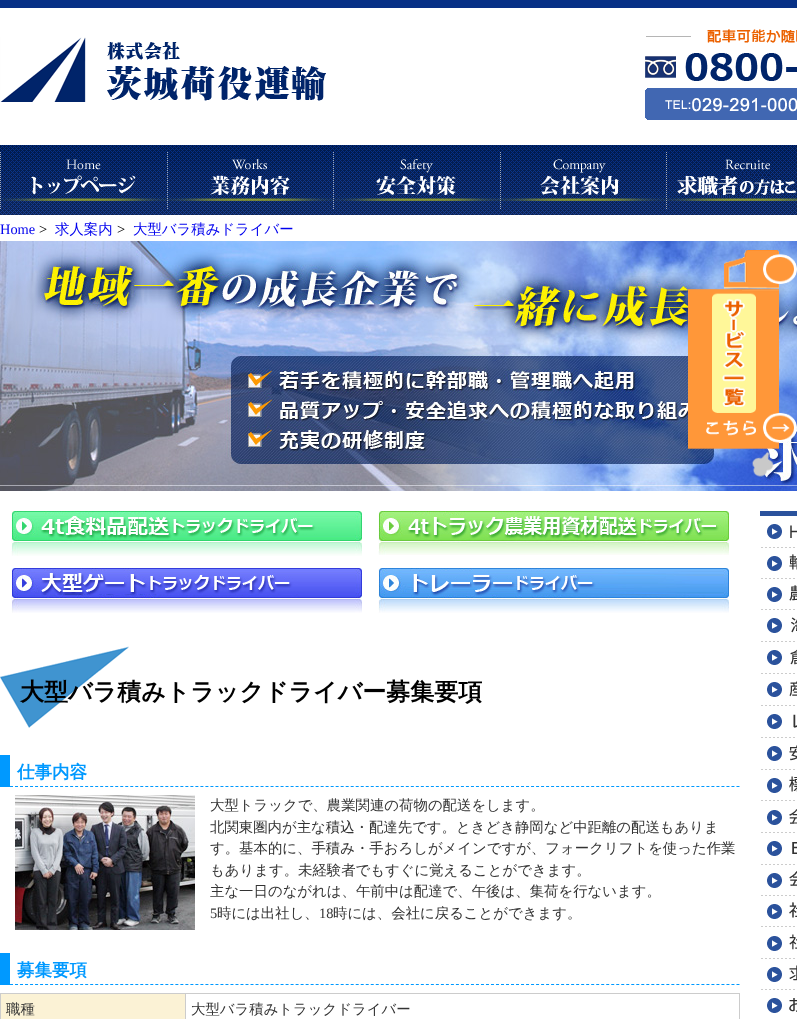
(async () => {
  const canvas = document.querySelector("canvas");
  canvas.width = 797;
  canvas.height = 1019;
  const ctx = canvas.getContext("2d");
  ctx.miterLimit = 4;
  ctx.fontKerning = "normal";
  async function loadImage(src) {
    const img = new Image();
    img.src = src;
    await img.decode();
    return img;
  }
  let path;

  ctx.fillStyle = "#ffffff";
  ctx.fillRect(0, 0, 797, 1019);
  ctx.fillStyle = "#073086";
  ctx.fillRect(0, 0, 797, 8);
  ctx.drawImage(await loadImage("img/1.png"), 0, 37, 326, 65);
  ctx.drawImage(await loadImage("img/2.png"), 645, 29, 152, 91);
  ctx.drawImage(await loadImage("img/3.png"), 0, 145, 167, 70);
  ctx.drawImage(await loadImage("img/4.png"), 167, 145, 166, 70);
  ctx.drawImage(await loadImage("img/5.png"), 333, 145, 167, 70);
  ctx.drawImage(await loadImage("img/6.png"), 500, 145, 166, 70);
  ctx.drawImage(await loadImage("img/7.png"), 666, 145, 131, 70);
  ctx.drawImage(await loadImage("img/8.png"), 0, 241, 797, 250);
  ctx.drawImage(await loadImage("img/9.png"), 688, 250, 109, 227);
  ctx.drawImage(await loadImage("img/10.png"), 11, 511, 351, 45);
  ctx.drawImage(await loadImage("img/11.png"), 378, 511, 351, 44);
  ctx.drawImage(await loadImage("img/12.png"), 11, 568, 351, 45);
  ctx.drawImage(await loadImage("img/13.png"), 378, 568, 351, 45);
  ctx.drawImage(await loadImage("img/14.png"), 0, 646, 129, 82);
  path = new Path2D("M0 786.5H740");
  ctx.strokeStyle = "#0099ff";
  ctx.setLineDash([3, 2.01]);
  ctx.stroke(path);
  ctx.fillStyle = "#0099ff";
  ctx.fillRect(0, 755, 10, 32);
  ctx.drawImage(await loadImage("img/15.png"), 15, 795, 180, 135);
  path = new Path2D("M0 984.5H740");
  ctx.stroke(path);
  for (const [x, y, w, h, color] of [
    [0, 953, 10, 32, "#0099ff"],
    [0, 993, 740, 26, "#cccccc"],
    [1, 994, 184, 25, "#fbf2d5"],
    [186, 994, 553, 25, "#ffffff"],
    [760, 511, 37, 5, "#2b529c"],
  ]) {
    ctx.fillStyle = color;
    ctx.fillRect(x, y, w, h);
  }
  ctx.drawImage(await loadImage("img/16.png"), 761, 524, 36, 24);
  ctx.drawImage(await loadImage("img/17.png"), 761, 554, 36, 25);
  ctx.drawImage(await loadImage("img/18.png"), 761, 585, 36, 25);
  ctx.drawImage(await loadImage("img/19.png"), 761, 617, 36, 25);
  ctx.drawImage(await loadImage("img/20.png"), 761, 649, 36, 25);
  ctx.drawImage(await loadImage("img/21.png"), 761, 681, 36, 25);
  ctx.drawImage(await loadImage("img/22.png"), 761, 714, 36, 24);
  ctx.drawImage(await loadImage("img/23.png"), 761, 745, 36, 25);
  ctx.drawImage(await loadImage("img/24.png"), 761, 776, 36, 25);
  ctx.drawImage(await loadImage("img/25.png"), 761, 809, 36, 24);
  ctx.drawImage(await loadImage("img/26.png"), 761, 841, 36, 24);
  ctx.drawImage(await loadImage("img/27.png"), 761, 871, 36, 25);
  ctx.drawImage(await loadImage("img/28.png"), 761, 902, 36, 25);
  ctx.drawImage(await loadImage("img/29.png"), 761, 934, 36, 25);
  ctx.drawImage(await loadImage("img/30.png"), 761, 965, 36, 25);
  ctx.drawImage(await loadImage("img/31.png"), 767, 998, 30, 15);
  ctx.font = "14.4px Liberation Serif";
  ctx.fillStyle = "#0000ee";
  ctx.fillText("Home", 0, 234);
  ctx.fillStyle = "#000000";
  ctx.fillText(">", 39, 234);
  ctx.font = "500 14.4px WenQuanYi Zen Hei";
  ctx.fillStyle = "#0000ee";
  ctx.fillText("求人案内", 55, 234);
  ctx.font = "14.4px Liberation Serif";
  ctx.fillStyle = "#000000";
  ctx.fillText(">", 117, 234);
  ctx.font = "500 14.4px WenQuanYi Zen Hei";
  ctx.fillStyle = "#0000ee";
  ctx.fillText("大型バラ積みドライバー", 133, 234);
  ctx.font = "bold 24px WenQuanYi Zen Hei";
  ctx.fillStyle = "#000000";
  ctx.fillText("大型バラ積みトラックドライバー募集要項", 20, 700);
  ctx.font = "bold 17.5px WenQuanYi Zen Hei";
  ctx.fillStyle = "#0099ff";
  ctx.fillText("仕事内容", 17, 778);
  ctx.font = "500 14.4px WenQuanYi Zen Hei";
  ctx.fillStyle = "#333333";
  for (const [text, x, y] of [
    ["大型トラックで、農業関連の荷物の配送をします。", 210, 810],
    ["北関東圏内が主な積込・配達先です。ときどき静岡など中距離の配送もありま", 210, 832],
    ["す。基本的に、手積み・手おろしがメインですが、フォークリフトを使った作業", 210, 853],
    ["もあります。未経験者でもすぐに覚えることができます。", 210, 875],
    ["主な一日のながれは、午前中は配達で、午後は、集荷を行ないます。", 210, 896],
  ]) {
    ctx.fillText(text, x, y);
  }
  ctx.font = "14.4px Liberation Serif";
  ctx.fillText("5", 210, 918);
  ctx.font = "500 14.4px WenQuanYi Zen Hei";
  ctx.fillText("時には出社し、", 217, 918);
  ctx.font = "14.4px Liberation Serif";
  ctx.fillText("18", 319, 918);
  ctx.font = "500 14.4px WenQuanYi Zen Hei";
  ctx.fillText("時には、会社に戻ることができます。", 333, 918);
  ctx.font = "bold 17.5px WenQuanYi Zen Hei";
  ctx.fillStyle = "#0099ff";
  ctx.fillText("募集要項", 17, 976);
  ctx.font = "500 14.4px WenQuanYi Zen Hei";
  ctx.fillStyle = "#333333";
  ctx.fillText("職種", 6, 1014);
  ctx.fillText("大型バラ積みトラックドライバー", 191, 1014);
})();
